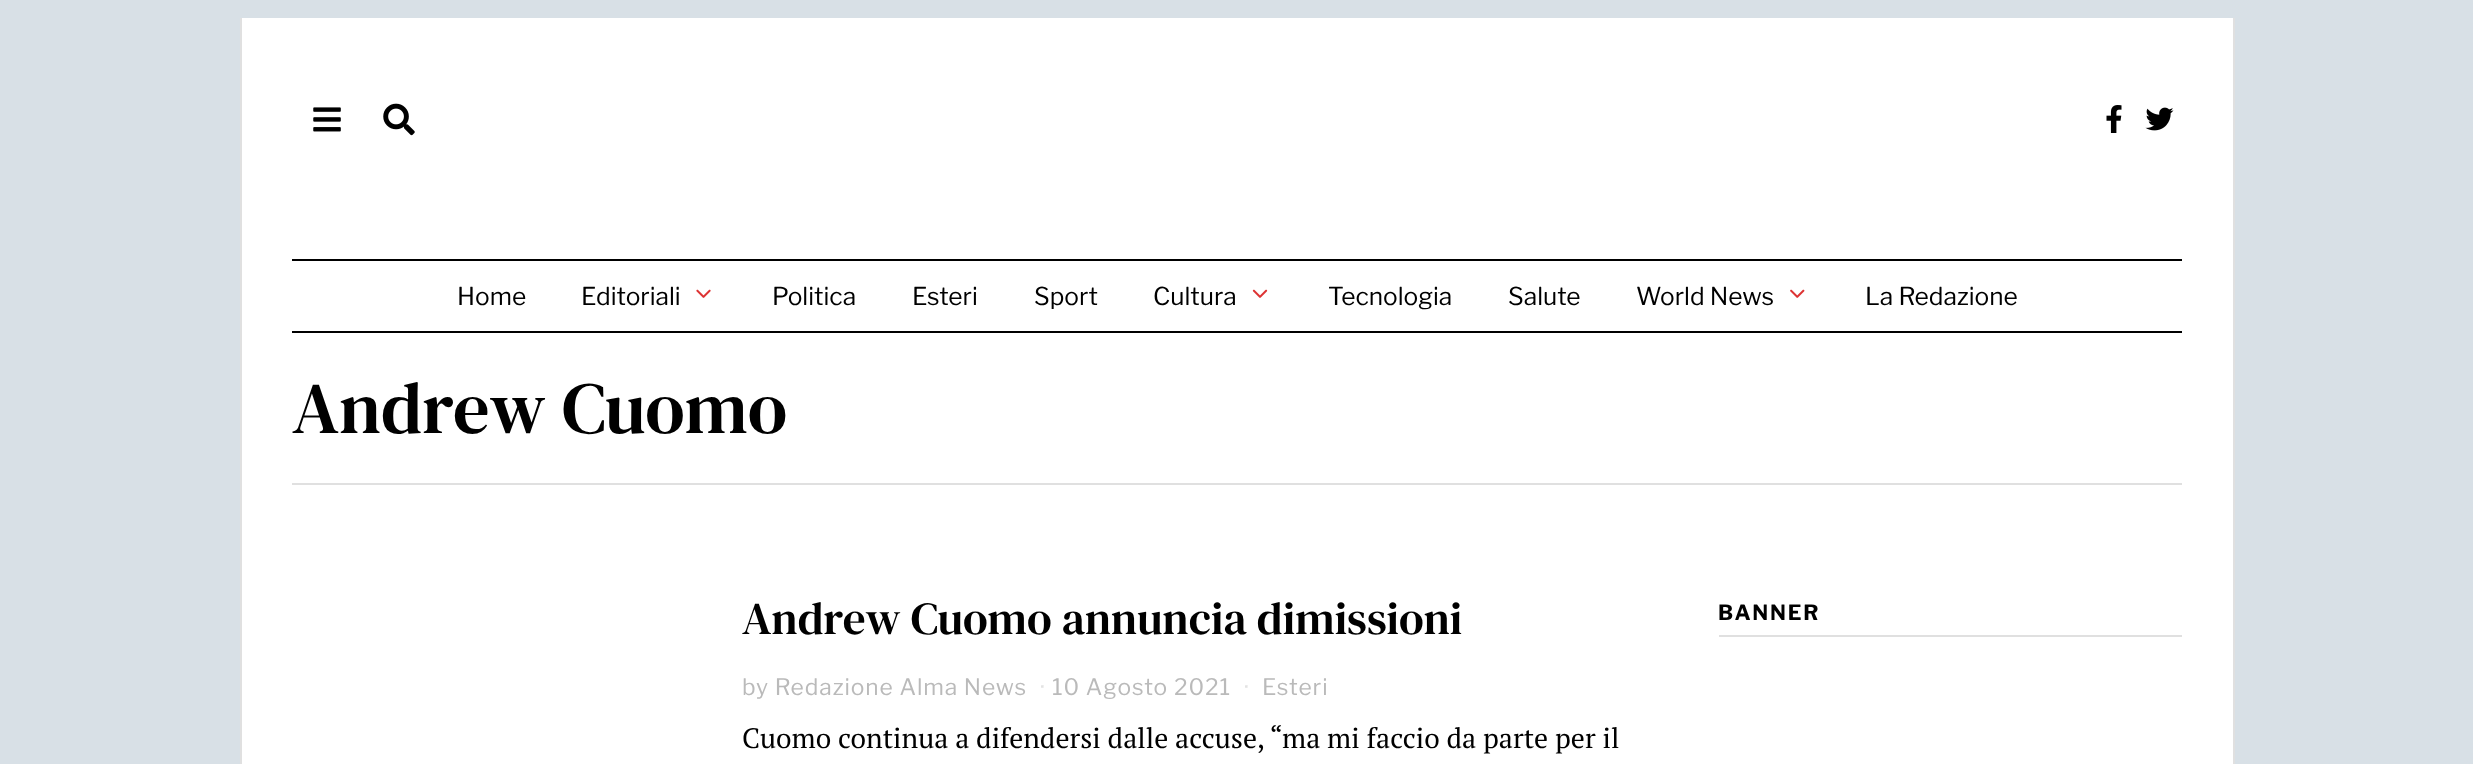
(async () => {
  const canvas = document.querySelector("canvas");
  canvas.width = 2473;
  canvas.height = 764;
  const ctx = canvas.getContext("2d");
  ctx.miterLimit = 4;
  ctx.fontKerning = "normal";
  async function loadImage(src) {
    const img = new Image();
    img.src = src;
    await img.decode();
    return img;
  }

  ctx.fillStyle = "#d8e0e6";
  ctx.fillRect(0, 0, 2473, 764);
  for (const [x, y, w, h, color] of [
    [2233, 18, 2, 746, "#e0e0e0"],
    [240, 18, 2, 746, "#e0e0e0"],
    [242, 18, 1991, 746, "#ffffff"],
  ]) {
    ctx.fillStyle = color;
    ctx.fillRect(x, y, w, h);
  }
  ctx.drawImage(await loadImage("img/1.png"), 313, 107, 28, 25);
  ctx.drawImage(await loadImage("img/2.png"), 383, 103, 32, 33);
  ctx.drawImage(await loadImage("img/3.png"), 2106, 105, 16, 28);
  ctx.drawImage(await loadImage("img/4.png"), 2145, 107, 29, 24);
  ctx.fillStyle = "#000000";
  ctx.fillRect(292, 259, 1890, 2);
  ctx.fillRect(292, 331, 1890, 2);
  ctx.drawImage(await loadImage("img/5.png"), 696, 289, 15, 9);
  ctx.drawImage(await loadImage("img/6.png"), 1252, 289, 16, 9);
  ctx.drawImage(await loadImage("img/7.png"), 1790, 289, 15, 9);
  ctx.fillStyle = "#e0e0e0";
  ctx.fillRect(292, 483, 1890, 2);
  ctx.fillRect(1719, 635, 463, 2);
  ctx.font = "24.5px Libre Franklin";
  ctx.fillStyle = "#000000";
  for (const [text, x, y] of [
    ["Home", 457, 305],
    ["Editoriali", 581, 305],
    ["Politica", 772, 305],
    ["Esteri", 912, 305],
    ["Sport", 1034, 305],
    ["Cultura", 1153, 305],
    ["Tecnologia", 1328, 305],
    ["Salute", 1508, 305],
    ["World News", 1636, 305],
    ["La Redazione", 1865, 305],
  ]) {
    ctx.fillText(text, x, y);
  }
  ctx.font = "72.75px DM Serif Text";
  ctx.fillText("Andrew Cuomo", 292, 433);
  ctx.font = "45.5px DM Serif Text";
  ctx.fillText("Andrew Cuomo annuncia dimissioni", 742, 634);
  ctx.letterSpacing = "0.9px";
  ctx.font = "22.75px Libre Franklin";
  ctx.fillStyle = "#bababa";
  ctx.fillText("by Redazione Alma News", 742, 695);
  ctx.fillStyle = "#e3e3e3";
  ctx.fillText("·", 1040, 695);
  ctx.fillStyle = "#bababa";
  ctx.fillText("10 Agosto 2021", 1052, 695);
  ctx.fillStyle = "#e3e3e3";
  ctx.fillText("·", 1244, 695);
  ctx.fillStyle = "#bababa";
  ctx.fillText("Esteri", 1262, 695);
  ctx.letterSpacing = "0px";
  ctx.font = "28px PT Serif";
  ctx.fillStyle = "#000000";
  ctx.fillText("Cuomo continua a difendersi dalle accuse, “ma mi faccio da parte per il", 742, 748);
  ctx.letterSpacing = "1.75px";
  ctx.font = "bold 21px Libre Franklin";
  ctx.fillText("BANNER", 1718, 620);
})();
